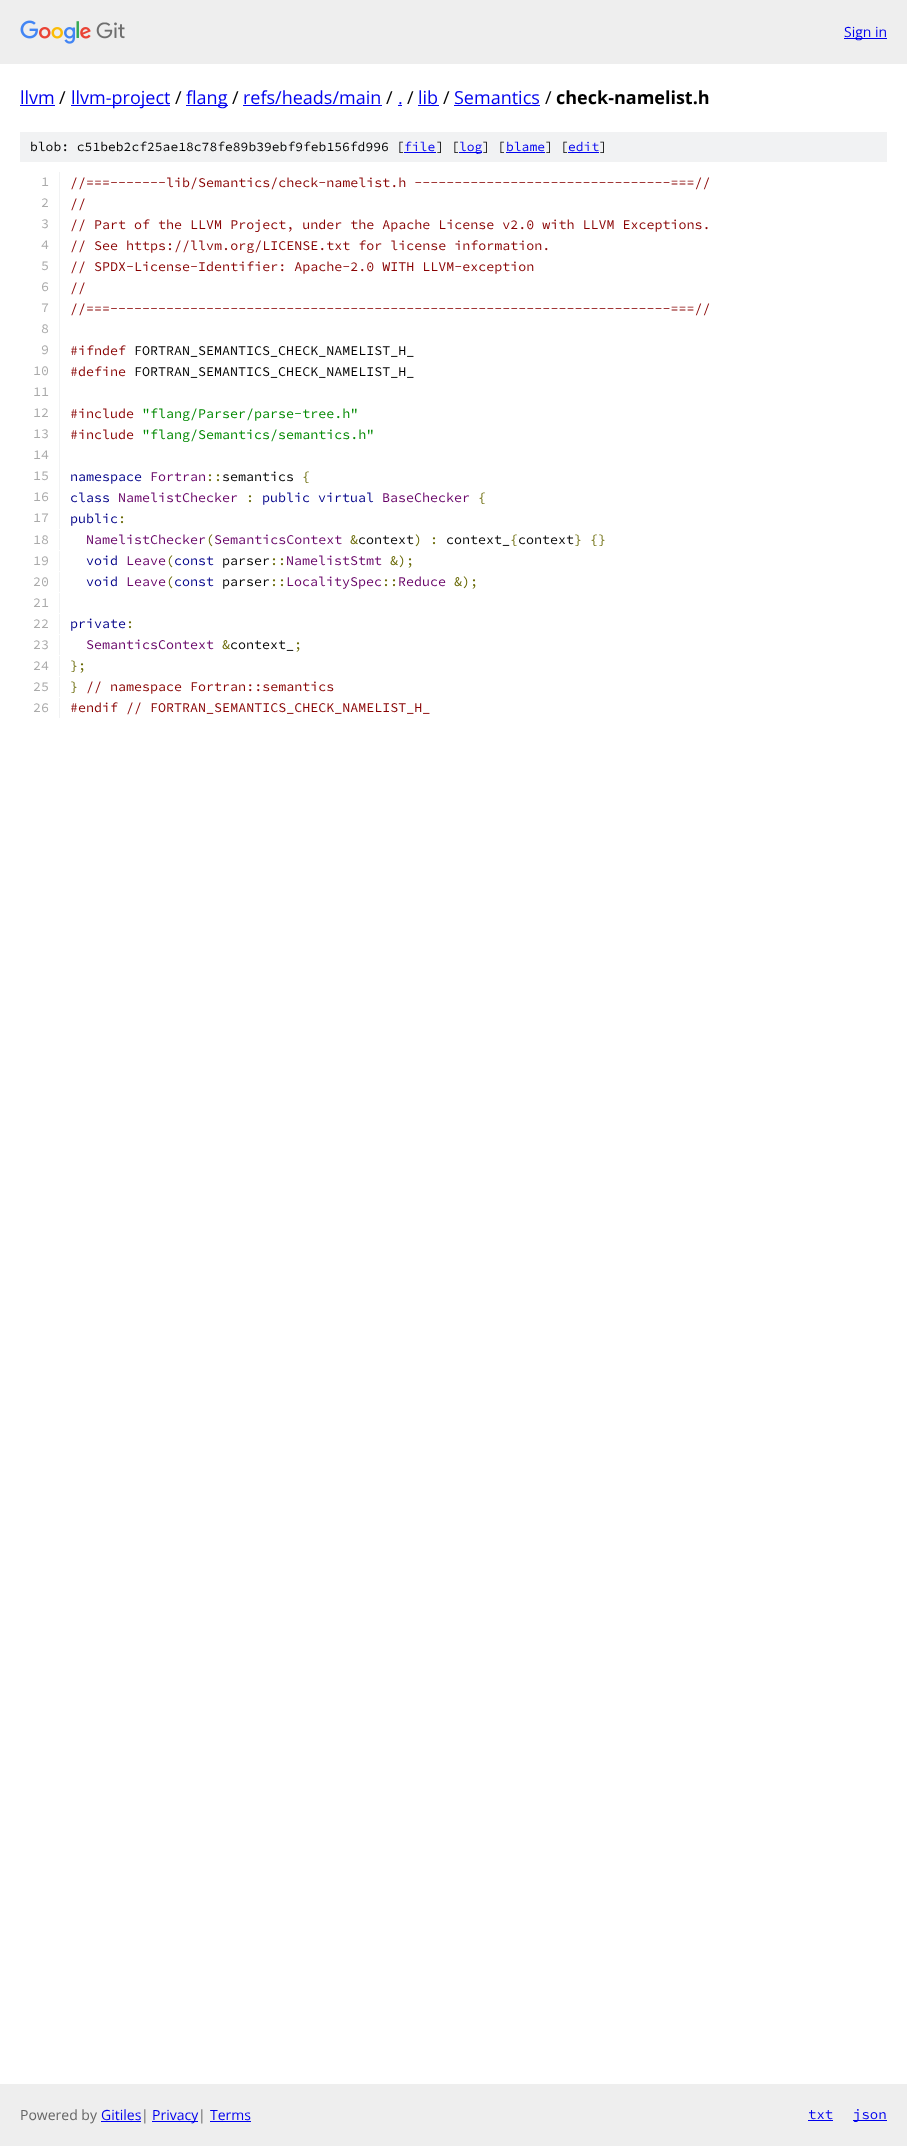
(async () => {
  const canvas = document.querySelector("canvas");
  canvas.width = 907;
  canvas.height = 2146;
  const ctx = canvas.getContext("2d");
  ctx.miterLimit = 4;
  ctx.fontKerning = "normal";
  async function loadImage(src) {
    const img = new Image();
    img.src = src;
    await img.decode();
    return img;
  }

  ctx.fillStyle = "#ffffff";
  ctx.fillRect(0, 0, 907, 2146);
  ctx.fillStyle = "#eeeeee";
  ctx.fillRect(0, 0, 907, 64);
  ctx.drawImage(await loadImage("img/1.png"), 20, 20, 105, 24);
  for (const [x, y, w, h, color] of [
    [844, 38, 43, 1, "#0000ee"],
    [20, 105, 35, 1, "#0000ee"],
    [71, 105, 99, 1, "#0000ee"],
    [186, 105, 42, 1, "#0000ee"],
    [243, 105, 139, 1, "#0000ee"],
    [398, 105, 4, 1, "#0000ee"],
    [418, 105, 21, 1, "#0000ee"],
    [454, 105, 86, 1, "#0000ee"],
    [20, 132, 867, 30, "#f1f2f3"],
    [404, 152, 32, 1, "#0000ee"],
    [459, 152, 23, 1, "#0000ee"],
    [506, 152, 39, 1, "#0000ee"],
    [568, 152, 31, 1, "#0000ee"],
    [59, 172, 1, 357, "#f1f2f3"],
    [59, 530, 1, 20, "#f1f2f3"],
    [59, 551, 1, 20, "#f1f2f3"],
    [59, 572, 1, 20, "#f1f2f3"],
    [59, 593, 1, 20, "#f1f2f3"],
    [59, 614, 1, 20, "#f1f2f3"],
    [59, 635, 1, 20, "#f1f2f3"],
    [59, 656, 1, 20, "#f1f2f3"],
    [59, 677, 1, 20, "#f1f2f3"],
    [59, 698, 1, 20, "#f1f2f3"],
    [0, 2084, 907, 62, "#eeeeee"],
    [101, 2121, 40, 1, "#0000ee"],
    [152, 2121, 46, 1, "#0000ee"],
    [210, 2121, 41, 1, "#0000ee"],
    [808, 2120, 25, 1, "#0000ee"],
    [853, 2120, 34, 1, "#0000ee"],
  ]) {
    ctx.fillStyle = color;
    ctx.fillRect(x, y, w, h);
  }
  ctx.font = "14px Open Sans";
  ctx.fillText("Sign in", 844, 37);
  ctx.font = "18px Open Sans";
  ctx.fillText("llvm", 20, 104);
  ctx.fillStyle = "#000000";
  ctx.fillText("/", 59, 104);
  ctx.fillStyle = "#0000ee";
  ctx.fillText("llvm-project", 71, 104);
  ctx.fillStyle = "#000000";
  ctx.fillText("/", 175, 104);
  ctx.fillStyle = "#0000ee";
  ctx.fillText("flang", 186, 104);
  ctx.fillStyle = "#000000";
  ctx.fillText("/", 232, 104);
  ctx.fillStyle = "#0000ee";
  ctx.fillText("refs/heads/main", 243, 104);
  ctx.fillStyle = "#000000";
  ctx.fillText("/", 386, 104);
  ctx.fillStyle = "#0000ee";
  ctx.fillText(".", 398, 104);
  ctx.fillStyle = "#000000";
  ctx.fillText("/", 407, 104);
  ctx.fillStyle = "#0000ee";
  ctx.fillText("lib", 418, 104);
  ctx.fillStyle = "#000000";
  ctx.fillText("/", 443, 104);
  ctx.fillStyle = "#0000ee";
  ctx.fillText("Semantics", 454, 104);
  ctx.fillStyle = "#000000";
  ctx.fillText("/", 545, 104);
  ctx.font = "bold 18px Open Sans";
  ctx.fillText("check-namelist.h", 556, 104);
  ctx.font = "200 13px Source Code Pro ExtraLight";
  ctx.fillText("blob: c51beb2cf25ae18c78fe89b39ebf9feb156fd996 [", 30, 151);
  ctx.fillStyle = "#0000ee";
  ctx.fillText("file", 404, 151);
  ctx.fillStyle = "#000000";
  ctx.fillText("] [", 436, 151);
  ctx.fillStyle = "#0000ee";
  ctx.fillText("log", 459, 151);
  ctx.fillStyle = "#000000";
  ctx.fillText("] [", 482, 151);
  ctx.fillStyle = "#0000ee";
  ctx.fillText("blame", 506, 151);
  ctx.fillStyle = "#000000";
  ctx.fillText("] [", 545, 151);
  ctx.fillStyle = "#0000ee";
  ctx.fillText("edit", 568, 151);
  ctx.fillStyle = "#000000";
  ctx.fillText("]", 599, 151);
  ctx.font = "200 13.35px Source Code Pro ExtraLight";
  ctx.fillStyle = "#aaaaaa";
  ctx.fillText("1", 41, 186);
  ctx.fillStyle = "#880000";
  ctx.fillText("//===-------lib/Semantics/check-namelist.h --------------------------------===//", 70, 187);
  ctx.fillStyle = "#aaaaaa";
  ctx.fillText("2", 41, 207);
  ctx.fillStyle = "#880000";
  ctx.fillText("//", 70, 208);
  ctx.fillStyle = "#aaaaaa";
  ctx.fillText("3", 41, 228);
  ctx.fillStyle = "#880000";
  ctx.fillText("// Part of the LLVM Project, under the Apache License v2.0 with LLVM Exceptions.", 70, 229);
  ctx.fillStyle = "#aaaaaa";
  ctx.fillText("4", 41, 249);
  ctx.fillStyle = "#880000";
  ctx.fillText("// See https://llvm.org/LICENSE.txt for license information.", 70, 250);
  ctx.fillStyle = "#aaaaaa";
  ctx.fillText("5", 41, 270);
  ctx.fillStyle = "#880000";
  ctx.fillText("// SPDX-License-Identifier: Apache-2.0 WITH LLVM-exception", 70, 271);
  ctx.fillStyle = "#aaaaaa";
  ctx.fillText("6", 41, 291);
  ctx.fillStyle = "#880000";
  ctx.fillText("//", 70, 292);
  ctx.fillStyle = "#aaaaaa";
  ctx.fillText("7", 41, 312);
  ctx.fillStyle = "#880000";
  ctx.fillText("//===----------------------------------------------------------------------===//", 70, 313);
  ctx.fillStyle = "#aaaaaa";
  ctx.fillText("8", 41, 333);
  ctx.fillText("9", 41, 354);
  ctx.fillStyle = "#880000";
  ctx.fillText("#ifndef", 70, 355);
  ctx.fillStyle = "#000000";
  ctx.fillText("FORTRAN_SEMANTICS_CHECK_NAMELIST_H_", 134, 355);
  ctx.fillStyle = "#aaaaaa";
  ctx.fillText("10", 33, 375);
  ctx.fillStyle = "#880000";
  ctx.fillText("#define", 70, 376);
  ctx.fillStyle = "#000000";
  ctx.fillText("FORTRAN_SEMANTICS_CHECK_NAMELIST_H_", 134, 376);
  ctx.fillStyle = "#aaaaaa";
  ctx.fillText("11", 33, 396);
  ctx.fillText("12", 33, 417);
  ctx.fillStyle = "#880000";
  ctx.fillText("#include", 70, 418);
  ctx.fillStyle = "#008800";
  ctx.fillText("\"flang/Parser/parse-tree.h\"", 142, 418);
  ctx.fillStyle = "#aaaaaa";
  ctx.fillText("13", 33, 438);
  ctx.fillStyle = "#880000";
  ctx.fillText("#include", 70, 439);
  ctx.fillStyle = "#008800";
  ctx.fillText("\"flang/Semantics/semantics.h\"", 142, 439);
  ctx.fillStyle = "#aaaaaa";
  ctx.fillText("14", 33, 459);
  ctx.fillText("15", 33, 480);
  ctx.fillStyle = "#000088";
  ctx.fillText("namespace", 70, 481);
  ctx.fillStyle = "#660066";
  ctx.fillText("Fortran", 150, 481);
  ctx.fillStyle = "#666600";
  ctx.fillText("::", 206, 481);
  ctx.fillStyle = "#000000";
  ctx.fillText("semantics", 222, 481);
  ctx.fillStyle = "#666600";
  ctx.fillText("{", 302, 481);
  ctx.fillStyle = "#aaaaaa";
  ctx.fillText("16", 33, 501);
  ctx.fillStyle = "#000088";
  ctx.fillText("class", 70, 502);
  ctx.fillStyle = "#660066";
  ctx.fillText("NamelistChecker", 118, 502);
  ctx.fillStyle = "#666600";
  ctx.fillText(":", 246, 502);
  ctx.fillStyle = "#000088";
  ctx.fillText("public virtual", 262, 502);
  ctx.fillStyle = "#660066";
  ctx.fillText("BaseChecker", 382, 502);
  ctx.fillStyle = "#666600";
  ctx.fillText("{", 478, 502);
  ctx.fillStyle = "#aaaaaa";
  ctx.fillText("17", 33, 522);
  ctx.fillStyle = "#000088";
  ctx.fillText("public", 70, 523);
  ctx.fillStyle = "#666600";
  ctx.fillText(":", 118, 523);
  ctx.fillStyle = "#aaaaaa";
  ctx.fillText("18", 33, 544);
  ctx.fillStyle = "#660066";
  ctx.fillText("NamelistChecker SemanticsContext", 86, 544);
  ctx.fillStyle = "#666600";
  ctx.fillText("(", 206, 544);
  ctx.fillText("&", 350, 544);
  ctx.fillStyle = "#000000";
  ctx.fillText("context", 358, 544);
  ctx.fillStyle = "#666600";
  ctx.fillText(") :", 414, 544);
  ctx.fillText("} {}", 574, 544);
  ctx.fillStyle = "#000000";
  ctx.fillText("context_ context", 446, 544);
  ctx.fillStyle = "#666600";
  ctx.fillText("{", 510, 544);
  ctx.fillStyle = "#aaaaaa";
  ctx.fillText("19", 33, 565);
  ctx.fillStyle = "#000088";
  ctx.fillText("void", 86, 565);
  ctx.fillStyle = "#660066";
  ctx.fillText("Leave", 126, 565);
  ctx.fillStyle = "#666600";
  ctx.fillText("(", 166, 565);
  ctx.fillStyle = "#000088";
  ctx.fillText("const", 174, 565);
  ctx.fillStyle = "#000000";
  ctx.fillText("parser", 222, 565);
  ctx.fillStyle = "#666600";
  ctx.fillText("::", 270, 565);
  ctx.fillStyle = "#660066";
  ctx.fillText("NamelistStmt", 286, 565);
  ctx.fillStyle = "#666600";
  ctx.fillText("&);", 390, 565);
  ctx.fillStyle = "#aaaaaa";
  ctx.fillText("20", 33, 586);
  ctx.fillStyle = "#000088";
  ctx.fillText("void", 86, 586);
  ctx.fillStyle = "#660066";
  ctx.fillText("Leave", 126, 586);
  ctx.fillStyle = "#666600";
  ctx.fillText("(", 166, 586);
  ctx.fillStyle = "#000088";
  ctx.fillText("const", 174, 586);
  ctx.fillStyle = "#000000";
  ctx.fillText("parser", 222, 586);
  ctx.fillStyle = "#666600";
  ctx.fillText("::", 270, 586);
  ctx.fillStyle = "#660066";
  ctx.fillText("LocalitySpec", 286, 586);
  ctx.fillStyle = "#666600";
  ctx.fillText("::", 382, 586);
  ctx.fillStyle = "#660066";
  ctx.fillText("Reduce", 398, 586);
  ctx.fillStyle = "#666600";
  ctx.fillText("&);", 454, 586);
  ctx.fillStyle = "#aaaaaa";
  ctx.fillText("21", 33, 607);
  ctx.fillText("22", 33, 628);
  ctx.fillStyle = "#000088";
  ctx.fillText("private", 70, 628);
  ctx.fillStyle = "#666600";
  ctx.fillText(":", 126, 628);
  ctx.fillStyle = "#aaaaaa";
  ctx.fillText("23", 33, 649);
  ctx.fillStyle = "#660066";
  ctx.fillText("SemanticsContext", 86, 649);
  ctx.fillStyle = "#666600";
  ctx.fillText("&", 222, 649);
  ctx.fillStyle = "#000000";
  ctx.fillText("context_", 230, 649);
  ctx.fillStyle = "#666600";
  ctx.fillText(";", 294, 649);
  ctx.fillStyle = "#aaaaaa";
  ctx.fillText("24", 33, 670);
  ctx.fillStyle = "#666600";
  ctx.fillText("};", 70, 670);
  ctx.fillStyle = "#aaaaaa";
  ctx.fillText("25", 33, 691);
  ctx.fillStyle = "#666600";
  ctx.fillText("}", 70, 691);
  ctx.fillStyle = "#880000";
  ctx.fillText("// namespace Fortran::semantics", 86, 691);
  ctx.fillStyle = "#aaaaaa";
  ctx.fillText("26", 33, 712);
  ctx.fillStyle = "#880000";
  ctx.fillText("#endif // FORTRAN_SEMANTICS_CHECK_NAMELIST_H_", 70, 712);
  ctx.font = "14px Open Sans";
  ctx.fillStyle = "#666666";
  ctx.fillText("Powered by", 20, 2120);
  ctx.fillStyle = "#0000ee";
  ctx.fillText("Gitiles", 101, 2120);
  ctx.fillStyle = "#666666";
  ctx.fillText("|", 141, 2120);
  ctx.fillStyle = "#0000ee";
  ctx.fillText("Privacy", 152, 2120);
  ctx.fillStyle = "#666666";
  ctx.fillText("|", 198, 2120);
  ctx.fillStyle = "#0000ee";
  ctx.fillText("Terms", 210, 2120);
  ctx.font = "200 14px Source Code Pro ExtraLight";
  ctx.fillText("txt", 808, 2119);
  ctx.fillText("json", 853, 2119);
})();
